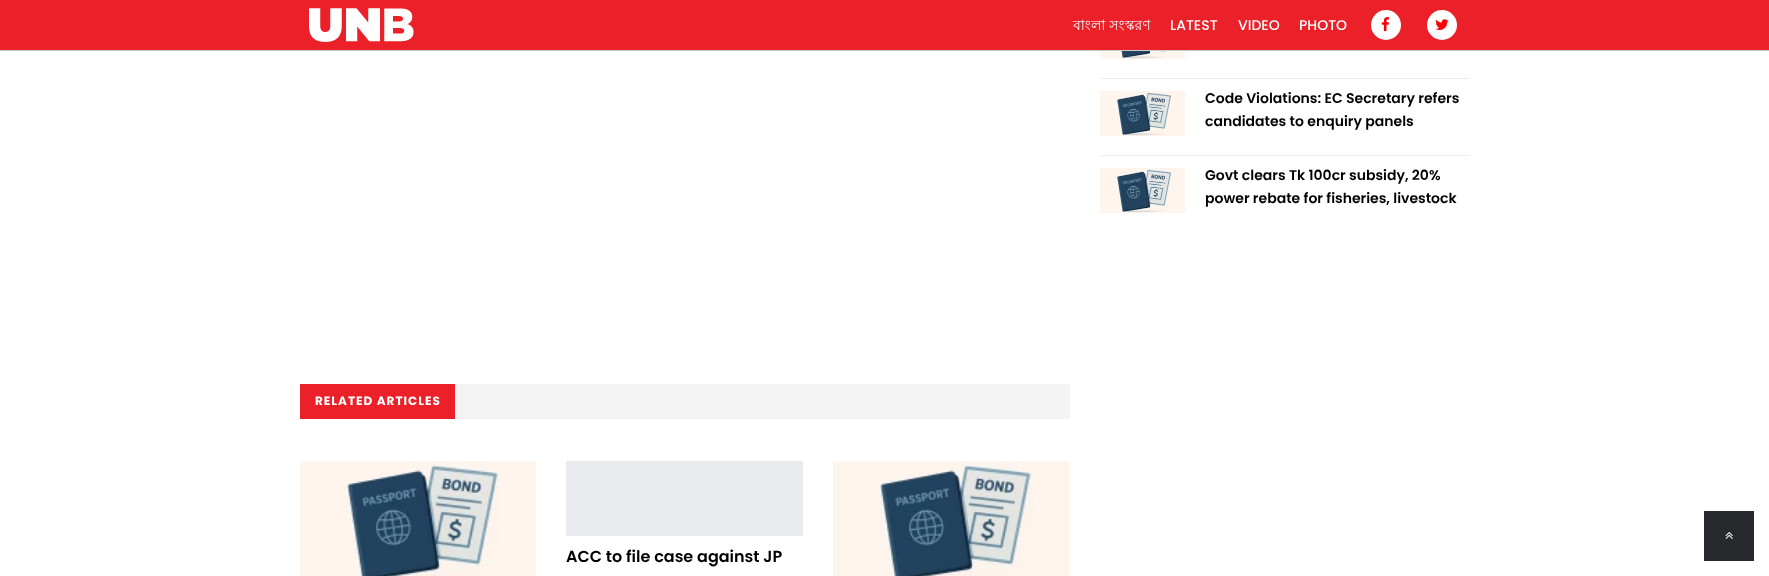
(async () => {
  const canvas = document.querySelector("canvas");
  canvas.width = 1769;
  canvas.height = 576;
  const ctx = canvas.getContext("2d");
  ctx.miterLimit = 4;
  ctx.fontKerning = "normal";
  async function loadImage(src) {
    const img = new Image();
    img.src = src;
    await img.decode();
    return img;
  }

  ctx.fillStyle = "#ffffff";
  ctx.fillRect(0, 0, 1769, 576);
  ctx.fillStyle = "#ec2028";
  ctx.fillRect(0, 0, 1769, 50);
  ctx.fillStyle = "#cccccc";
  ctx.fillRect(0, 50, 1769, 1);
  ctx.drawImage(await loadImage("img/1.png"), 309, 8, 105, 34);
  ctx.fillStyle = "#ffffff";
  ctx.beginPath();
  ctx.arc(1386, 25, 15, 0, Math.PI * 2);
  ctx.fill();
  ctx.drawImage(await loadImage("img/2.png"), 1381, 17, 9, 15);
  ctx.beginPath();
  ctx.arc(1442, 25, 15, 0, Math.PI * 2);
  ctx.fill();
  ctx.drawImage(await loadImage("img/3.png"), 1435, 19, 14, 11);
  ctx.fillStyle = "#eeeeee";
  ctx.fillRect(1100, 78, 370, 1);
  ctx.drawImage(await loadImage("img/4.png"), 1100, 51, 85, 8);
  ctx.fillRect(1100, 155, 370, 1);
  ctx.drawImage(await loadImage("img/5.png"), 1100, 91, 85, 45);
  ctx.drawImage(await loadImage("img/5.png"), 1100, 168, 85, 45);
  ctx.fillStyle = "#f3f3f3";
  ctx.fillRect(455, 384, 615, 35);
  ctx.fillStyle = "#ec2028";
  ctx.fillRect(300, 384, 155, 35);
  ctx.drawImage(await loadImage("img/6.png"), 300, 461, 236, 115);
  ctx.fillStyle = "#e9ebee";
  ctx.fillRect(566, 461, 237, 75);
  ctx.drawImage(await loadImage("img/6.png"), 833, 461, 236, 115);
  ctx.fillStyle = "#27292d";
  ctx.fillRect(1704, 511, 50, 50);
  ctx.drawImage(await loadImage("img/7.png"), 1725, 532, 8, 7);
  ctx.font = "14px Lohit Bengali";
  ctx.fillStyle = "#ffffff";
  ctx.fillText("বাংলা সংস্করণ", 1073, 30);
  ctx.font = "500 14px Poppins";
  for (const [text, x, y] of [
    ["LATEST", 1170, 30],
    ["VIDEO", 1238, 30],
    ["PHOTO", 1299, 30],
  ]) {
    ctx.fillText(text, x, y);
  }
  ctx.font = "600 14px Poppins";
  ctx.fillStyle = "#000000";
  for (const [text, x, y] of [
    ["Code Violations: EC Secretary refers", 1205, 103],
    ["candidates to enquiry panels", 1205, 126],
    ["Govt clears Tk 100cr subsidy, 20%", 1205, 180],
    ["power rebate for fisheries, livestock", 1205, 203],
  ]) {
    ctx.fillText(text, x, y);
  }
  ctx.letterSpacing = "1px";
  ctx.font = "bold 12px Poppins";
  ctx.fillStyle = "#ffffff";
  ctx.fillText("RELATED ARTICLES", 315, 405);
  ctx.letterSpacing = "0px";
  ctx.font = "600 16px Poppins";
  ctx.fillStyle = "#000000";
  ctx.fillText("ACC to file case against JP", 566, 562);
})();
